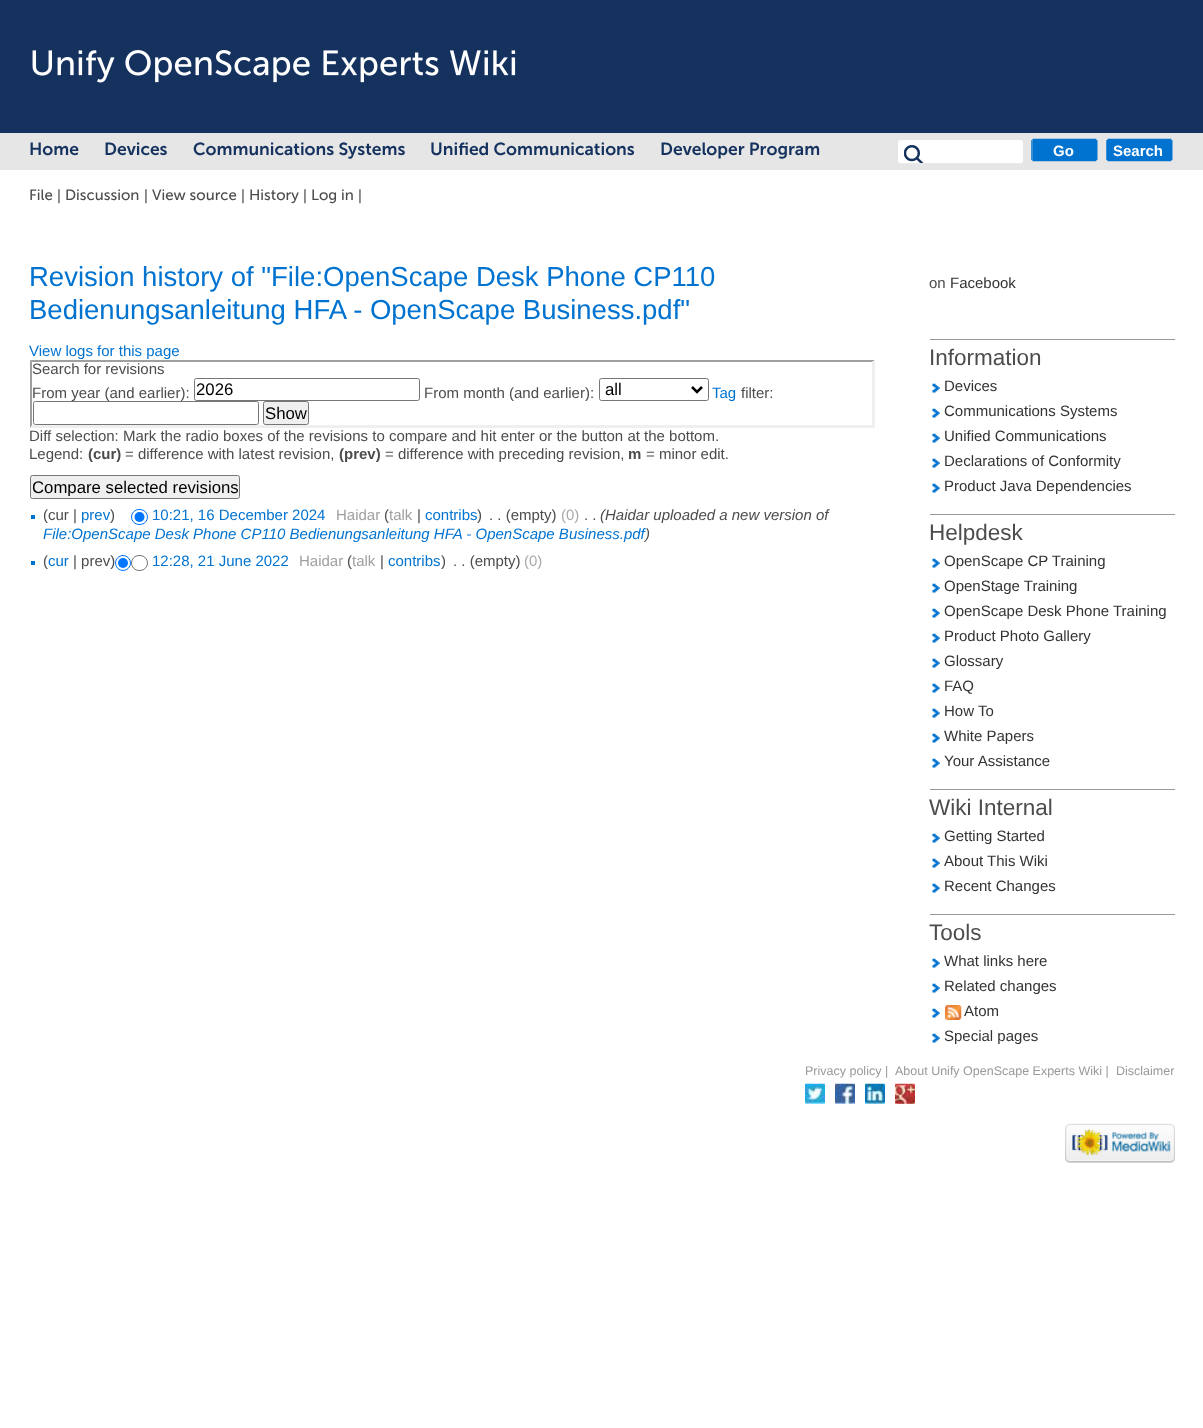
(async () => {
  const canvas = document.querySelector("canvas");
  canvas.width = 1203;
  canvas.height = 1428;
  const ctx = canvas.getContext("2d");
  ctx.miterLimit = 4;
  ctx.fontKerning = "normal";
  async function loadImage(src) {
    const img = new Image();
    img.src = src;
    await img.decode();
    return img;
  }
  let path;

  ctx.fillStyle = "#ffffff";
  ctx.fillRect(0, 0, 1203, 1428);
  ctx.fillStyle = "#15325f";
  ctx.fillRect(0, 0, 1203, 133);
  ctx.drawImage(await loadImage("img/1.png"), 32, 50, 484, 33);
  ctx.fillStyle = "#e6e6e6";
  ctx.fillRect(0, 133, 1203, 37);
  ctx.fillStyle = "#e9e9e9";
  path = new Path2D("M898 162C898 163 899 164 900 164H1020C1022 164 1023 163 1023 162V144L1022 142V154C1022 156 1024 162 1020 162H900Z");
  ctx.fill(path);
  ctx.fillStyle = "#ffffff";
  ctx.beginPath();
  ctx.roundRect(898, 140, 125, 23, 2.5);
  ctx.fill();
  ctx.drawImage(await loadImage("img/2.png"), 904, 145, 20, 18);
  ctx.drawImage(await loadImage("img/3.png"), 1031, 139, 2, 22);
  ctx.drawImage(await loadImage("img/4.png"), 1032, 138, 66, 24);
  ctx.drawImage(await loadImage("img/5.png"), 1106, 139, 2, 22);
  ctx.drawImage(await loadImage("img/6.png"), 1107, 138, 66, 24);
  ctx.fillStyle = "#9f9f9f";
  path = new Path2D("M30 360H875L872 362H32Z");
  ctx.fill(path);
  ctx.fillStyle = "#efefef";
  path = new Path2D("M875 360V428L872 425V362Z");
  ctx.fill(path);
  path = new Path2D("M875 428H30L32 425H872Z");
  ctx.fill(path);
  ctx.fillStyle = "#9f9f9f";
  path = new Path2D("M30 428V360L32 362V425Z");
  ctx.fill(path);
  ctx.beginPath();
  ctx.roundRect(194.5, 378.5, 225, 22, 2);
  ctx.strokeStyle = "#767676";
  ctx.stroke();
  ctx.beginPath();
  ctx.roundRect(599.5, 378.5, 109, 22, 2);
  ctx.stroke();
  path = new Path2D("M692 387L697 392L702 387");
  ctx.strokeStyle = "#000000";
  ctx.lineWidth = 2.5;
  ctx.stroke(path);
  ctx.fillStyle = "#efefef";
  ctx.beginPath();
  ctx.roundRect(263.5, 401.5, 45, 23, 2);
  ctx.fill();
  ctx.strokeStyle = "#767676";
  ctx.lineWidth = 1;
  ctx.stroke();
  ctx.beginPath();
  ctx.roundRect(30.5, 475.5, 209, 23, 2);
  ctx.fill();
  ctx.stroke();
  ctx.fillStyle = "#0073d0";
  ctx.fillRect(31, 515, 4, 4);
  ctx.beginPath();
  ctx.roundRect(131.5, 509.5, 16, 15, 7.5);
  ctx.strokeStyle = "#0075ff";
  ctx.stroke();
  ctx.fillStyle = "#0075ff";
  ctx.beginPath();
  ctx.arc(139.5, 517, 5, 0, Math.PI * 2);
  ctx.fill();
  ctx.fillStyle = "#0073d0";
  ctx.fillRect(31, 561, 4, 4);
  ctx.beginPath();
  ctx.arc(123, 563, 7.5, 0, Math.PI * 2);
  ctx.stroke();
  ctx.fillStyle = "#0075ff";
  ctx.beginPath();
  ctx.arc(123, 563, 5, 0, Math.PI * 2);
  ctx.fill();
  ctx.beginPath();
  ctx.roundRect(131.5, 555.5, 16, 15, 7.5);
  ctx.strokeStyle = "#767676";
  ctx.stroke();
  ctx.fillStyle = "#999999";
  ctx.fillRect(930, 339, 245, 1);
  ctx.drawImage(await loadImage("img/7.png"), 932, 383, 8, 10);
  ctx.drawImage(await loadImage("img/7.png"), 932, 408, 8, 10);
  ctx.drawImage(await loadImage("img/7.png"), 932, 433, 8, 10);
  ctx.drawImage(await loadImage("img/7.png"), 932, 458, 8, 10);
  ctx.drawImage(await loadImage("img/7.png"), 932, 483, 8, 10);
  ctx.fillRect(930, 514, 245, 1);
  ctx.drawImage(await loadImage("img/7.png"), 932, 558, 8, 10);
  ctx.drawImage(await loadImage("img/7.png"), 932, 583, 8, 10);
  ctx.drawImage(await loadImage("img/7.png"), 932, 608, 8, 10);
  ctx.drawImage(await loadImage("img/7.png"), 932, 633, 8, 10);
  ctx.drawImage(await loadImage("img/7.png"), 932, 658, 8, 10);
  ctx.drawImage(await loadImage("img/7.png"), 932, 683, 8, 10);
  ctx.drawImage(await loadImage("img/7.png"), 932, 708, 8, 10);
  ctx.drawImage(await loadImage("img/7.png"), 932, 733, 8, 10);
  ctx.drawImage(await loadImage("img/7.png"), 932, 758, 8, 10);
  ctx.fillRect(930, 789, 245, 1);
  ctx.drawImage(await loadImage("img/7.png"), 932, 833, 8, 10);
  ctx.drawImage(await loadImage("img/7.png"), 932, 858, 8, 10);
  ctx.drawImage(await loadImage("img/7.png"), 932, 883, 8, 10);
  ctx.fillRect(930, 914, 245, 1);
  ctx.drawImage(await loadImage("img/7.png"), 932, 958, 8, 10);
  ctx.drawImage(await loadImage("img/7.png"), 932, 983, 8, 10);
  ctx.drawImage(await loadImage("img/7.png"), 932, 1008, 8, 10);
  ctx.drawImage(await loadImage("img/8.png"), 945, 1005, 17, 15);
  ctx.drawImage(await loadImage("img/7.png"), 932, 1033, 8, 10);
  ctx.drawImage(await loadImage("img/9.png"), 805, 1083, 20, 21);
  ctx.drawImage(await loadImage("img/10.png"), 835, 1083, 20, 21);
  ctx.drawImage(await loadImage("img/11.png"), 865, 1083, 20, 21);
  ctx.drawImage(await loadImage("img/12.png"), 895, 1083, 20, 21);
  ctx.drawImage(await loadImage("img/13.png"), 1065, 1123, 110, 40);
  ctx.font = "600 17.5px Museo Sans";
  ctx.fillStyle = "#15325f";
  for (const [text, x, y] of [
    ["Home", 29, 155],
    ["Devices", 104, 155],
    ["Communications Systems", 193, 155],
    ["Unified Communications", 430, 155],
    ["Developer Program", 660, 155],
  ]) {
    ctx.fillText(text, x, y);
  }
  ctx.font = "bold 15px Liberation Sans";
  ctx.fillStyle = "#ffffff";
  ctx.fillText("Go", 1053, 156);
  ctx.fillText("Search", 1113, 156);
  ctx.font = "15px Museo Sans";
  ctx.fillStyle = "#4c4c4c";
  ctx.fillText("File", 29, 200);
  ctx.font = "15px Liberation Sans";
  ctx.fillText("|", 57, 200);
  ctx.font = "15px Museo Sans";
  ctx.fillText("Discussion", 65, 200);
  ctx.font = "15px Liberation Sans";
  ctx.fillText("|", 144, 200);
  ctx.font = "15px Museo Sans";
  ctx.fillText("View source", 152, 200);
  ctx.font = "15px Liberation Sans";
  ctx.fillText("|", 241, 200);
  ctx.font = "15px Museo Sans";
  ctx.fillText("History", 249, 200);
  ctx.font = "15px Liberation Sans";
  ctx.fillText("|", 303, 200);
  ctx.font = "15px Museo Sans";
  ctx.fillText("Log in", 311, 200);
  ctx.font = "15px Liberation Sans";
  ctx.fillText("|", 358, 200);
  ctx.font = "27.5px Liberation Sans";
  ctx.fillStyle = "#0073d0";
  ctx.fillText("Revision history of \"File:OpenScape Desk Phone CP110", 29, 286);
  ctx.fillText("Bedienungsanleitung HFA - OpenScape Business.pdf\"", 29, 319);
  ctx.font = "15px Liberation Sans";
  ctx.fillText("View logs for this page", 29, 356);
  ctx.fillStyle = "#4c4c4c";
  ctx.fillText("Search for revisions", 32, 374);
  ctx.fillText("From year (and earlier):", 32, 398);
  ctx.font = "16.75px Liberation Sans";
  ctx.fillStyle = "#000000";
  ctx.fillText("2026", 196, 395);
  ctx.font = "15px Liberation Sans";
  ctx.fillStyle = "#4c4c4c";
  ctx.fillText("From month (and earlier):", 424, 398);
  ctx.font = "16.75px Liberation Sans";
  ctx.fillStyle = "#000000";
  ctx.fillText("all", 605, 395);
  ctx.font = "15px Liberation Sans";
  ctx.fillStyle = "#0073d0";
  ctx.fillText("Tag", 712, 398);
  ctx.fillStyle = "#4c4c4c";
  ctx.fillText("filter:", 741, 398);
  ctx.fillStyle = "#ffffff";
  ctx.beginPath();
  ctx.roundRect(33.5, 401.5, 225, 23, 2);
  ctx.fill();
  ctx.stroke();
  ctx.font = "16.75px Liberation Sans";
  ctx.fillStyle = "#000000";
  ctx.fillText("Show", 265, 419);
  ctx.font = "15px Liberation Sans";
  ctx.fillStyle = "#4c4c4c";
  ctx.fillText("Diff selection: Mark the radio boxes of the revisions to compare and hit enter or the button at the bottom.", 29, 441);
  ctx.fillText("Legend:", 29, 459);
  ctx.font = "bold 15px Liberation Sans";
  ctx.fillText("(cur)", 88, 459);
  ctx.font = "15px Liberation Sans";
  ctx.fillText("= difference with latest revision,", 125, 459);
  ctx.font = "bold 15px Liberation Sans";
  ctx.fillText("(prev)", 339, 459);
  ctx.font = "15px Liberation Sans";
  ctx.fillText("= difference with preceding revision,", 385, 459);
  ctx.font = "bold 15px Liberation Sans";
  ctx.fillText("m", 628, 459);
  ctx.font = "15px Liberation Sans";
  ctx.fillText("= minor edit.", 646, 459);
  ctx.save();
  ctx.beginPath();
  ctx.rect(33, 478, 205, 18);
  ctx.clip();
  ctx.font = "16.75px Liberation Sans";
  ctx.fillStyle = "#000000";
  ctx.fillText("Compare selected revisions", 32, 493);
  ctx.restore();
  ctx.font = "italic 15px Liberation Sans";
  ctx.fillText("(Haidar uploaded a new version of", 600, 520);
  ctx.fillStyle = "#0073d0";
  ctx.fillText("File:OpenScape Desk Phone CP110 Bedienungsanleitung HFA - OpenScape Business.pdf", 43, 539);
  ctx.fillStyle = "#4c4c4c";
  ctx.fillText(")", 645, 539);
  ctx.font = "15px Liberation Sans";
  ctx.fillText("(cur |", 43, 520);
  ctx.fillStyle = "#0073d0";
  ctx.fillText("prev", 81, 520);
  ctx.fillStyle = "#4c4c4c";
  ctx.fillText(")", 110, 520);
  ctx.fillStyle = "#0073d0";
  ctx.fillText("10:21, 16 December 2024", 152, 520);
  ctx.fillStyle = "#a0a0a0";
  ctx.fillText("Haidar", 336, 520);
  ctx.fillStyle = "#4c4c4c";
  ctx.fillText("(", 384, 520);
  ctx.fillStyle = "#a0a0a0";
  ctx.fillText("talk", 389, 520);
  ctx.fillStyle = "#4c4c4c";
  ctx.fillText("|", 417, 520);
  ctx.fillStyle = "#0073d0";
  ctx.fillText("contribs", 425, 520);
  ctx.fillStyle = "#4c4c4c";
  ctx.fillText(")", 477, 520);
  ctx.fillText(". . (empty)", 489, 520);
  ctx.fillStyle = "#aaaaaa";
  ctx.fillText("(0)", 561, 520);
  ctx.fillStyle = "#4c4c4c";
  ctx.fillText(". .", 584, 520);
  ctx.fillText("(", 43, 566);
  ctx.fillStyle = "#0073d0";
  ctx.fillText("cur", 48, 566);
  ctx.fillStyle = "#4c4c4c";
  ctx.fillText("| prev)", 73, 566);
  ctx.fillStyle = "#0073d0";
  ctx.fillText("12:28, 21 June 2022", 152, 566);
  ctx.fillStyle = "#a0a0a0";
  ctx.fillText("Haidar", 299, 566);
  ctx.fillStyle = "#4c4c4c";
  ctx.fillText("(", 347, 566);
  ctx.fillStyle = "#a0a0a0";
  ctx.fillText("talk", 352, 566);
  ctx.fillStyle = "#4c4c4c";
  ctx.fillText("|", 380, 566);
  ctx.fillStyle = "#0073d0";
  ctx.fillText("contribs", 388, 566);
  ctx.fillStyle = "#4c4c4c";
  ctx.fillText(")", 441, 566);
  ctx.fillText(". . (empty)", 453, 566);
  ctx.fillStyle = "#aaaaaa";
  ctx.fillText("(0)", 524, 566);
  ctx.fillStyle = "#4c4c4c";
  ctx.fillText("on", 929, 288);
  ctx.fillStyle = "#333333";
  ctx.fillText("Facebook", 950, 288);
  ctx.font = "22.5px Liberation Sans";
  ctx.fillStyle = "#4c4c4c";
  ctx.fillText("Information", 929, 365);
  ctx.font = "15px Liberation Sans";
  ctx.fillStyle = "#333333";
  for (const [text, x, y] of [
    ["Devices", 944, 391],
    ["Communications Systems", 944, 416],
    ["Unified Communications", 944, 441],
    ["Declarations of Conformity", 944, 466],
    ["Product Java Dependencies", 944, 491],
  ]) {
    ctx.fillText(text, x, y);
  }
  ctx.font = "22.5px Liberation Sans";
  ctx.fillStyle = "#4c4c4c";
  ctx.fillText("Helpdesk", 929, 540);
  ctx.font = "15px Liberation Sans";
  ctx.fillStyle = "#333333";
  for (const [text, x, y] of [
    ["OpenScape CP Training", 944, 566],
    ["OpenStage Training", 944, 591],
    ["OpenScape Desk Phone Training", 944, 616],
    ["Product Photo Gallery", 944, 641],
    ["Glossary", 944, 666],
    ["FAQ", 944, 691],
    ["How To", 944, 716],
    ["White Papers", 944, 741],
    ["Your Assistance", 944, 766],
  ]) {
    ctx.fillText(text, x, y);
  }
  ctx.font = "22.5px Liberation Sans";
  ctx.fillStyle = "#4c4c4c";
  ctx.fillText("Wiki Internal", 929, 815);
  ctx.font = "15px Liberation Sans";
  ctx.fillStyle = "#333333";
  for (const [text, x, y] of [
    ["Getting Started", 944, 841],
    ["About This Wiki", 944, 866],
    ["Recent Changes", 944, 891],
  ]) {
    ctx.fillText(text, x, y);
  }
  ctx.font = "22.5px Liberation Sans";
  ctx.fillStyle = "#4c4c4c";
  ctx.fillText("Tools", 929, 940);
  ctx.font = "15px Liberation Sans";
  ctx.fillStyle = "#333333";
  for (const [text, x, y] of [
    ["What links here", 944, 966],
    ["Related changes", 944, 991],
    ["Atom", 964, 1016],
    ["Special pages", 944, 1041],
  ]) {
    ctx.fillText(text, x, y);
  }
  ctx.font = "12.5px Liberation Sans";
  ctx.fillStyle = "#999999";
  for (const [text, x, y] of [
    ["Privacy policy |", 805, 1075],
    ["About Unify OpenScape Experts Wiki |", 895, 1075],
    ["Disclaimer", 1116, 1075],
  ]) {
    ctx.fillText(text, x, y);
  }
})();
